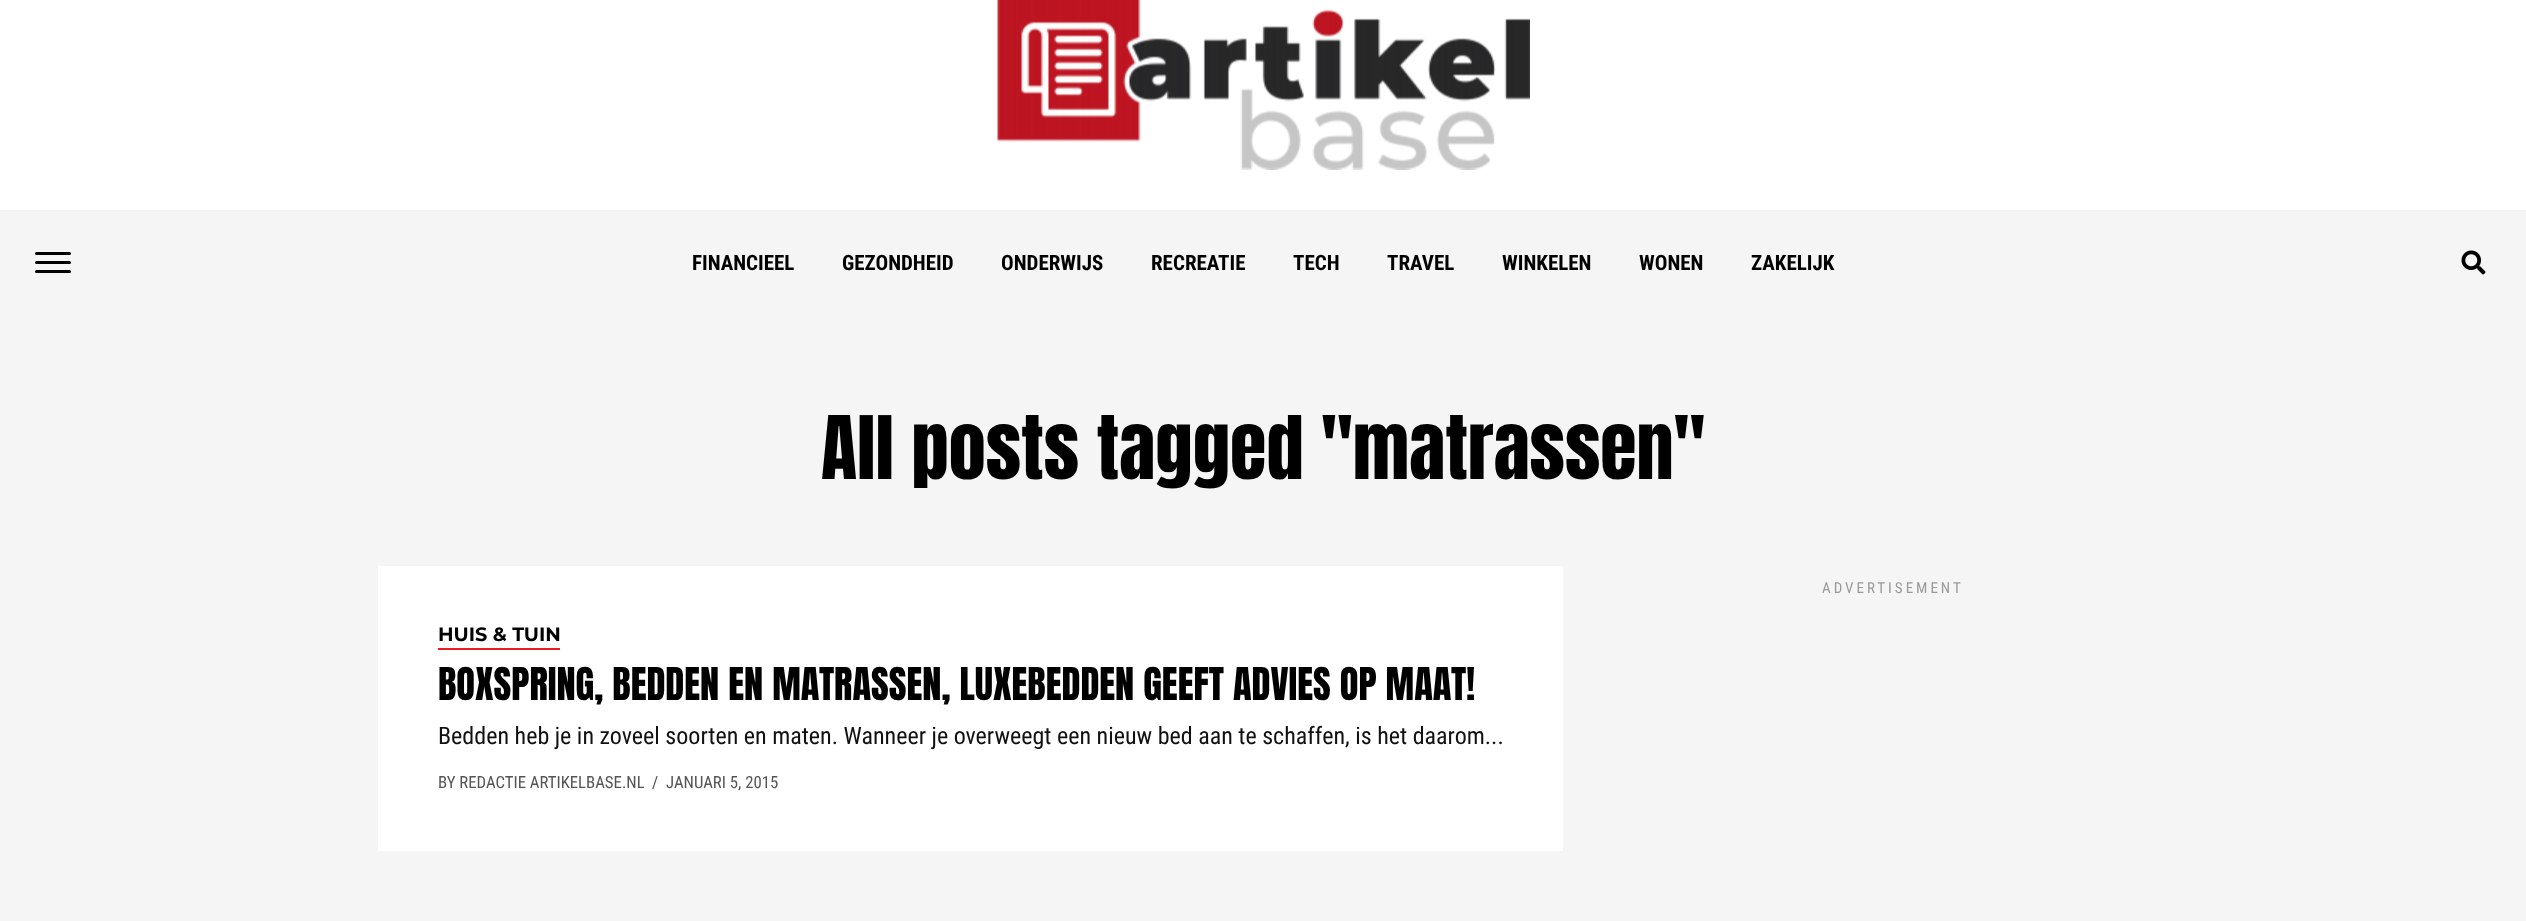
(async () => {
  const canvas = document.querySelector("canvas");
  canvas.width = 2526;
  canvas.height = 921;
  const ctx = canvas.getContext("2d");
  ctx.miterLimit = 4;
  ctx.fontKerning = "normal";
  async function loadImage(src) {
    const img = new Image();
    img.src = src;
    await img.decode();
    return img;
  }

  ctx.fillStyle = "#ffffff";
  ctx.fillRect(0, 0, 2526, 921);
  ctx.drawImage(await loadImage("img/1.png"), 997, 0, 533, 170);
  ctx.fillStyle = "#f5f5f5";
  ctx.fillRect(0, 210, 2526, 711);
  ctx.fillStyle = "#000000";
  ctx.beginPath();
  ctx.roundRect(35, 252, 36, 3, 1.5);
  ctx.fill();
  ctx.beginPath();
  ctx.roundRect(35, 261, 36, 3, 1.5);
  ctx.fill();
  ctx.beginPath();
  ctx.roundRect(35, 270, 36, 3, 1.5);
  ctx.fill();
  ctx.drawImage(await loadImage("img/2.png"), 2461, 250, 25, 25);
  ctx.fillStyle = "#ffffff";
  ctx.fillRect(378, 566, 1185, 285);
  ctx.fillStyle = "#ed1c24";
  ctx.fillRect(438, 648, 122, 2);
  ctx.font = "bold 21px Roboto Condensed";
  ctx.fillStyle = "#000000";
  for (const [text, x, y] of [
    ["FINANCIEEL", 692, 270],
    ["GEZONDHEID", 842, 270],
    ["ONDERWIJS", 1001, 270],
    ["RECREATIE", 1151, 270],
    ["TECH", 1293, 270],
    ["TRAVEL", 1387, 270],
    ["WINKELEN", 1502, 270],
    ["WONEN", 1639, 270],
    ["ZAKELIJK", 1751, 270],
  ]) {
    ctx.fillText(text, x, y);
  }
  ctx.font = "74.4px Anton";
  ctx.fillText("All posts tagged \"matrassen\"", 821, 479);
  ctx.letterSpacing = "3px";
  ctx.font = "15px Roboto Condensed";
  ctx.fillStyle = "#999999";
  ctx.fillText("ADVERTISEMENT", 1822, 593);
  ctx.letterSpacing = "0px";
  ctx.font = "bold 19.25px Montserrat";
  ctx.fillStyle = "#000000";
  ctx.fillText("HUIS & TUIN", 438, 641);
  ctx.font = "38.4px Anton";
  ctx.fillText("BOXSPRING, BEDDEN EN MATRASSEN, LUXEBEDDEN GEEFT ADVIES OP MAAT!", 438, 700);
  ctx.font = "24px Roboto Condensed";
  ctx.fillStyle = "#111111";
  ctx.fillText("Bedden heb je in zoveel soorten en maten. Wanneer je overweegt een nieuw bed aan te schaffen, is het daarom...", 438, 744);
  ctx.font = "16.75px Roboto Condensed";
  ctx.fillStyle = "#555555";
  for (const [text, x, y] of [
    ["BY REDACTIE ARTIKELBASE.NL", 438, 788],
    ["/", 652, 788],
    ["JANUARI 5, 2015", 666, 788],
  ]) {
    ctx.fillText(text, x, y);
  }
})();
